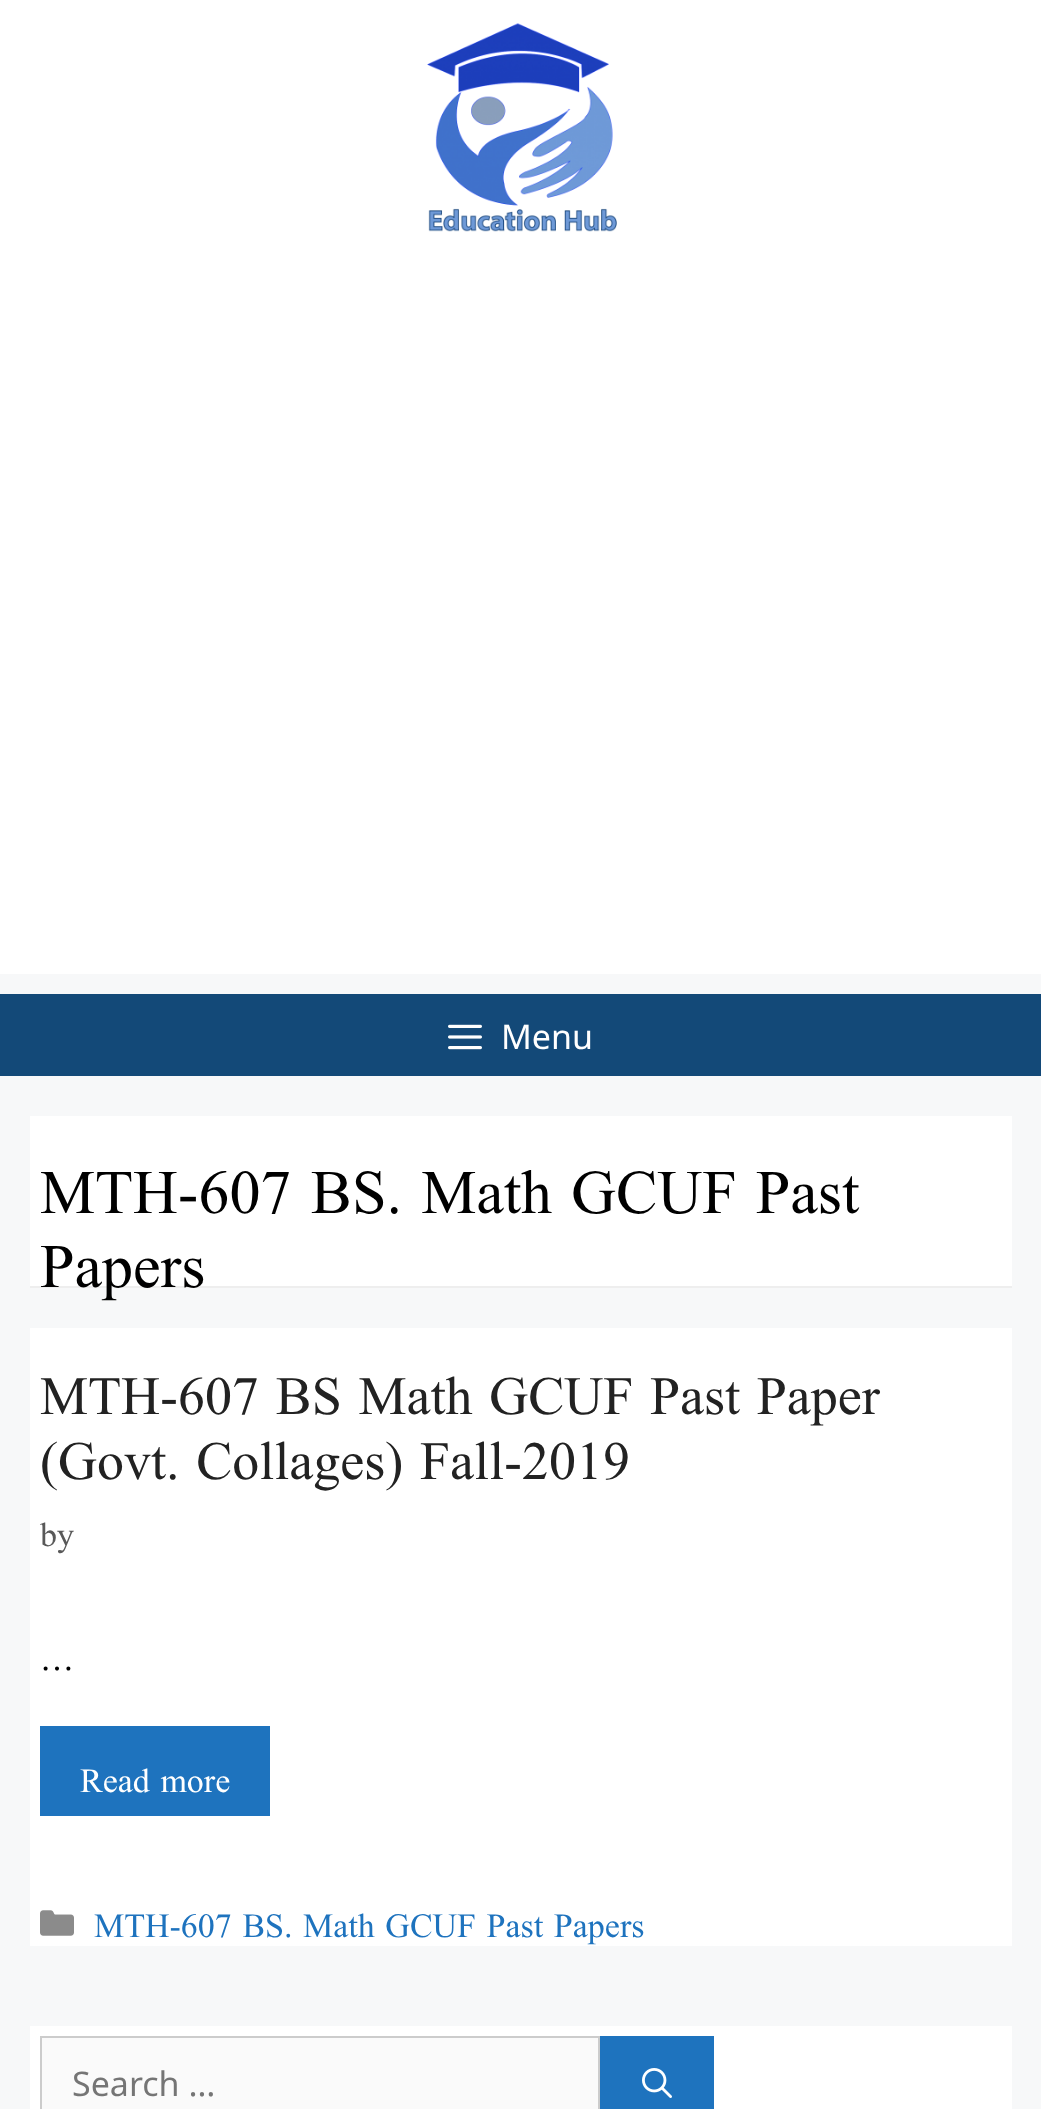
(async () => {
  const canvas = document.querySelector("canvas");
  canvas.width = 1041;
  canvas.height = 2109;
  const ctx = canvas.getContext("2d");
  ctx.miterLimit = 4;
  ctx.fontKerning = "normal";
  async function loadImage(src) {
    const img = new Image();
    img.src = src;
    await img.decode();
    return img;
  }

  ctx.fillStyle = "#f7f8f9";
  ctx.fillRect(0, 0, 1041, 2109);
  ctx.fillStyle = "#ffffff";
  ctx.fillRect(0, 0, 1041, 974);
  ctx.drawImage(await loadImage("img/1.png"), 427, 23, 190, 209);
  ctx.fillStyle = "#134978";
  ctx.fillRect(0, 994, 1041, 82);
  ctx.drawImage(await loadImage("img/2.png"), 448, 1024, 34, 26);
  for (const [x, y, w, h, color] of [
    [30, 1116, 982, 170, "#ffffff"],
    [30, 1286, 982, 2, "#eeeeee"],
    [30, 1328, 982, 618, "#ffffff"],
    [40, 1726, 230, 90, "#1e73be"],
  ]) {
    ctx.fillStyle = color;
    ctx.fillRect(x, y, w, h);
  }
  ctx.drawImage(await loadImage("img/3.png"), 40, 1910, 34, 26);
  ctx.fillStyle = "#ffffff";
  ctx.fillRect(30, 2026, 982, 83);
  ctx.fillStyle = "#fafafa";
  ctx.beginPath();
  ctx.rect(41, 2037, 558, 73);
  ctx.fill();
  ctx.strokeStyle = "#cccccc";
  ctx.lineWidth = 2;
  ctx.stroke();
  ctx.fillStyle = "#1e73be";
  ctx.fillRect(600, 2036, 114, 73);
  ctx.drawImage(await loadImage("img/4.png"), 642, 2068, 30, 30);
  ctx.font = "34px Noto Sans";
  ctx.fillStyle = "#ffffff";
  ctx.fillText("Menu", 501, 1049);
  ctx.font = "62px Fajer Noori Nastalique";
  ctx.fillStyle = "#000000";
  ctx.fillText("MTH-607 BS. Math GCUF Past", 40, 1213);
  ctx.fillText("Papers", 40, 1287);
  ctx.font = "54px Fajer Noori Nastalique";
  ctx.fillStyle = "#222222";
  ctx.fillText("MTH-607 BS Math GCUF Past Paper", 40, 1414);
  ctx.fillText("(Govt. Collages) Fall-2019", 40, 1479);
  ctx.font = "34px Fajer Noori Nastalique";
  ctx.fillStyle = "#595959";
  ctx.fillText("by", 40, 1546);
  ctx.font = "34px Liberation Serif";
  ctx.fillStyle = "#000000";
  ctx.fillText("…", 40, 1670);
  ctx.font = "34px Fajer Noori Nastalique";
  ctx.fillStyle = "#ffffff";
  ctx.fillText("Read more", 80, 1792);
  ctx.fillStyle = "#1e73be";
  ctx.fillText("MTH-607 BS. Math GCUF Past Papers", 94, 1937);
  ctx.font = "34px Noto Sans";
  ctx.fillStyle = "#757575";
  ctx.fillText("Search …", 72, 2096);
})();
